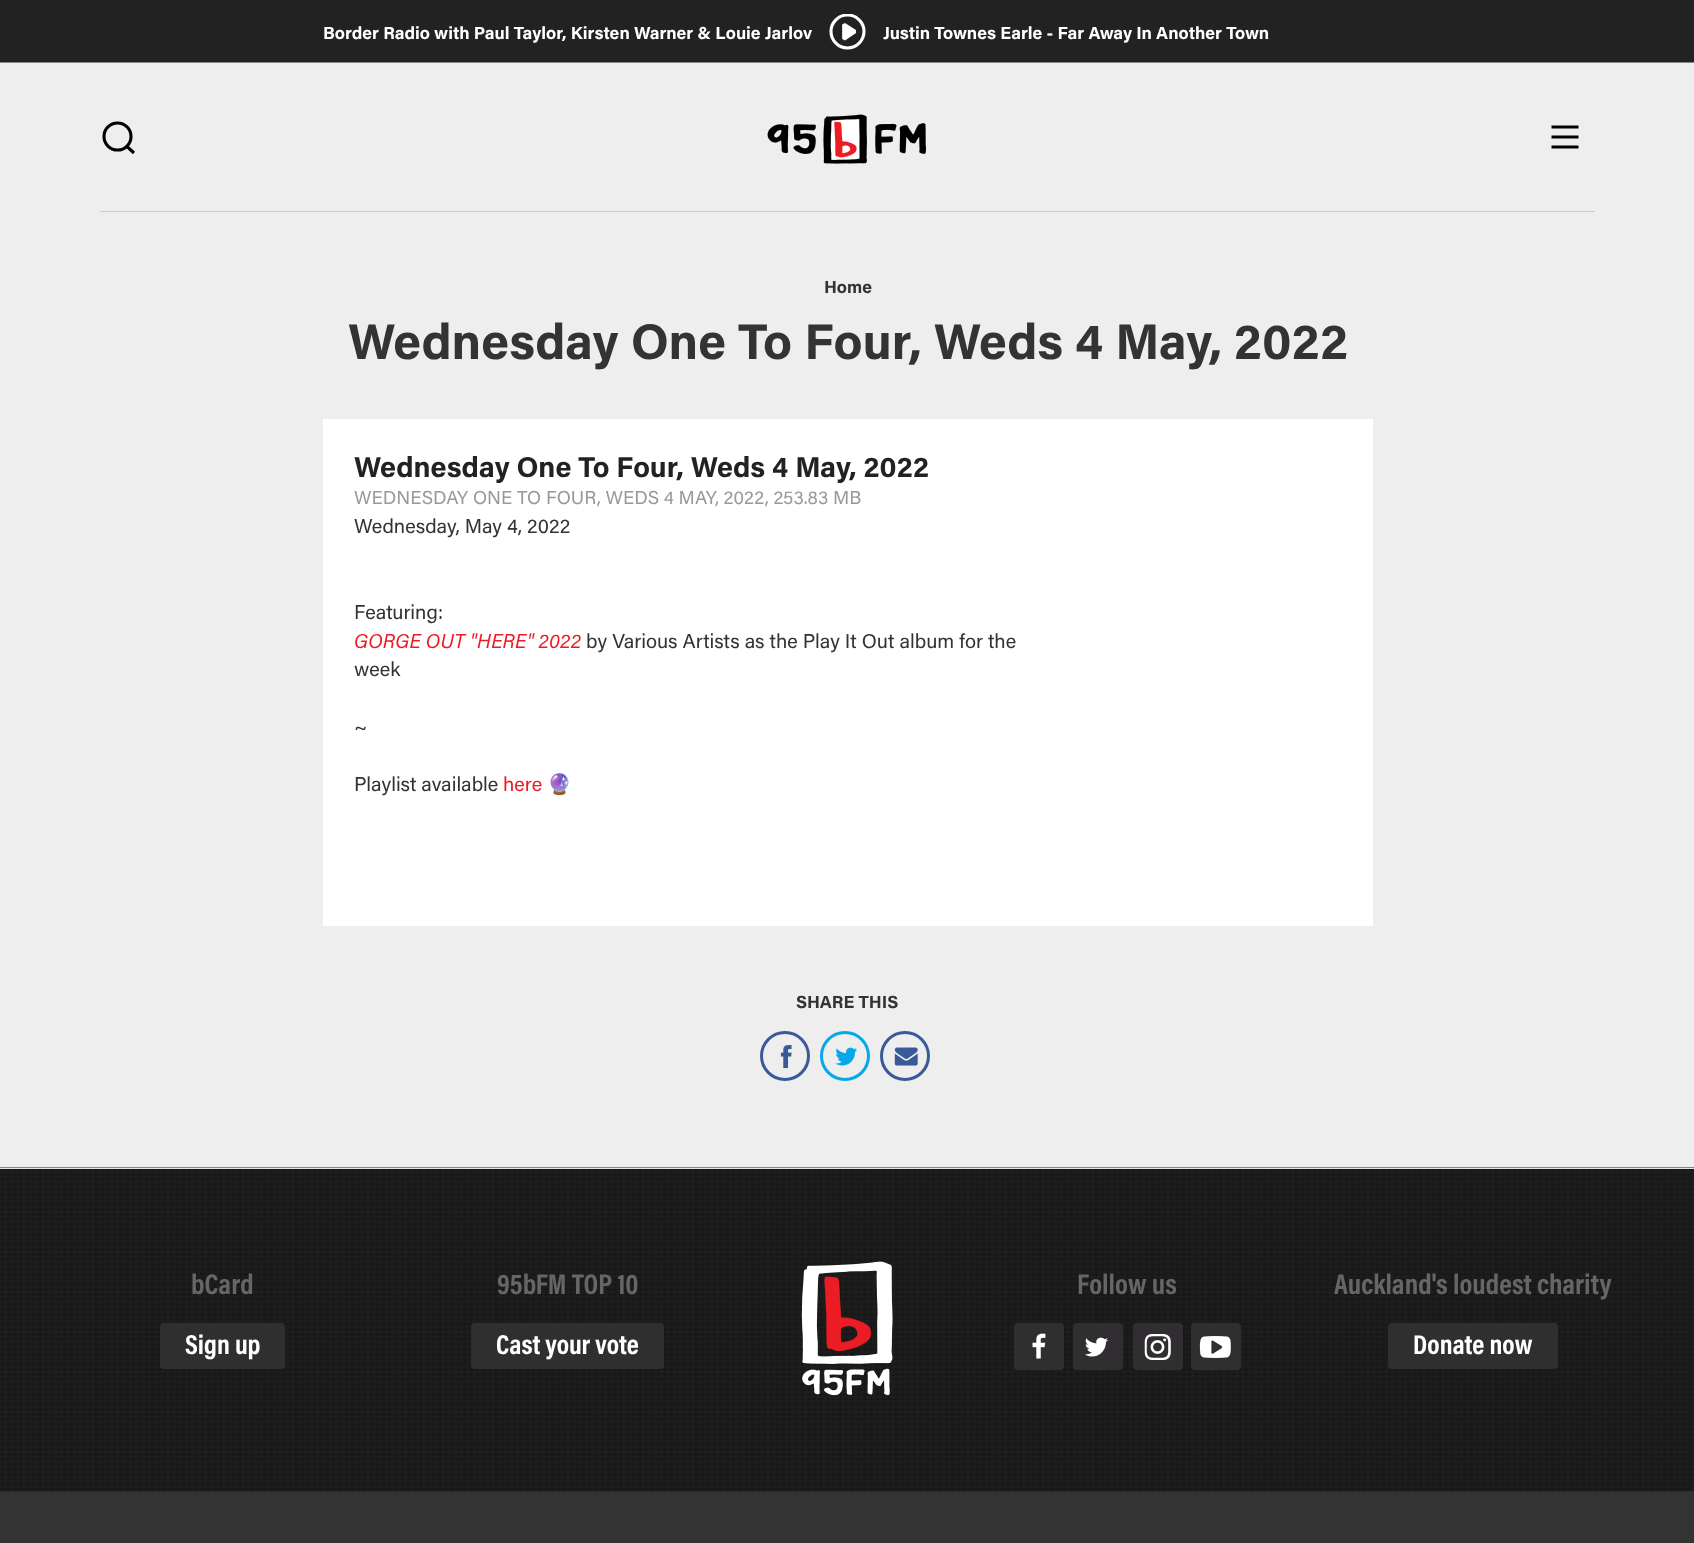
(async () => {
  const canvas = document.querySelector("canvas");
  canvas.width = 1694;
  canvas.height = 1543;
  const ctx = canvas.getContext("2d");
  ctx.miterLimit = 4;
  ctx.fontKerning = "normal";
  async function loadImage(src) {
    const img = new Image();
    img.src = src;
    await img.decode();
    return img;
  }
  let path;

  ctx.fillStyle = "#333333";
  ctx.fillRect(0, 0, 1694, 1543);
  ctx.fillStyle = "#222222";
  ctx.fillRect(0, 0, 1694, 62);
  ctx.fillStyle = "#ffffff";
  path = new Path2D("M844 24.5V39L855 31.5Z");
  ctx.fill(path);
  ctx.strokeStyle = "#ffffff";
  ctx.lineWidth = 3.7;
  ctx.lineCap = "round";
  ctx.lineJoin = "bevel";
  ctx.stroke(path);
  ctx.save();
  ctx.beginPath();
  ctx.rect(829, 14, 37, 36);
  ctx.clip();
  ctx.beginPath();
  ctx.arc(847.5, 31.5, 16.5, 0, Math.PI * 2);
  ctx.lineWidth = 3.1;
  ctx.stroke();
  ctx.restore();
  ctx.fillStyle = "#eeeeee";
  ctx.fillRect(0, 63, 1694, 1105);
  ctx.fillStyle = "#888888";
  ctx.fillRect(0, 62, 1694, 1);
  ctx.beginPath();
  ctx.arc(117.5, 136.5, 13.5, 0, Math.PI * 2);
  ctx.strokeStyle = "#000000";
  ctx.lineWidth = 3.1;
  ctx.stroke();
  path = new Path2D("M127 146.5L134 153");
  ctx.lineCap = "butt";
  ctx.lineJoin = "miter";
  ctx.stroke(path);
  ctx.drawImage(await loadImage("img/1.png"), 767, 114, 160, 50);
  path = new Path2D("M1551.5 137H1578.5M1551.5 127H1578.5M1551.5 147H1578.5");
  ctx.stroke(path);
  ctx.fillStyle = "#cccccc";
  ctx.fillRect(100, 211, 1495, 1);
  ctx.fillStyle = "#ffffff";
  ctx.fillRect(323, 419, 1050, 507);
  ctx.beginPath();
  ctx.arc(785, 1056, 23.5, 0, Math.PI * 2);
  ctx.strokeStyle = "#3a5998";
  ctx.lineWidth = 3;
  ctx.stroke();
  ctx.drawImage(await loadImage("img/2.png"), 780, 1045, 12, 24);
  ctx.beginPath();
  ctx.arc(845, 1056, 23.5, 0, Math.PI * 2);
  ctx.strokeStyle = "#07a8e9";
  ctx.stroke();
  ctx.drawImage(await loadImage("img/3.png"), 835, 1047, 23, 19);
  ctx.beginPath();
  ctx.arc(905, 1056, 23.5, 0, Math.PI * 2);
  ctx.strokeStyle = "#3a5998";
  ctx.stroke();
  ctx.drawImage(await loadImage("img/4.png"), 894, 1047, 24, 19);
  ctx.drawImage(await loadImage("img/5.png"), 0, 1167, 1694, 325);
  ctx.fillStyle = "#e5e5e5";
  ctx.fillRect(0, 1168, 1694, 1);
  ctx.fillStyle = "#2f2f2f";
  ctx.beginPath();
  ctx.roundRect(160, 1323, 125, 46, 4);
  ctx.fill();
  ctx.beginPath();
  ctx.roundRect(471, 1323, 193, 46, 4);
  ctx.fill();
  ctx.drawImage(await loadImage("img/6.png"), 801, 1261, 92, 135);
  ctx.fillStyle = "#302e30";
  ctx.beginPath();
  ctx.roundRect(1014, 1323, 50, 47, 4);
  ctx.fill();
  ctx.drawImage(await loadImage("img/7.png"), 1032, 1333, 14, 26);
  ctx.beginPath();
  ctx.roundRect(1073, 1323, 50, 47, 4);
  ctx.fill();
  ctx.drawImage(await loadImage("img/8.png"), 1085, 1337, 24, 20);
  ctx.beginPath();
  ctx.roundRect(1133, 1323, 50, 47, 4);
  ctx.fill();
  ctx.drawImage(await loadImage("img/9.png"), 1144, 1334, 27, 26);
  ctx.beginPath();
  ctx.roundRect(1191, 1323, 50, 47, 4);
  ctx.fill();
  ctx.drawImage(await loadImage("img/10.png"), 1199, 1336, 32, 22);
  ctx.fillStyle = "#2f2f2f";
  ctx.beginPath();
  ctx.roundRect(1388, 1323, 170, 46, 4);
  ctx.fill();
  ctx.font = "bold 17.5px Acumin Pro";
  ctx.fillStyle = "#ffffff";
  ctx.fillText("Border Radio with Paul Taylor, Kirsten Warner & Louie Jarlov", 323, 39);
  ctx.fillText("Justin Townes Earle - Far Away In Another Town", 883, 39);
  ctx.fillStyle = "#333333";
  ctx.fillText("Home", 824, 293);
  ctx.font = "bold 50px Acumin Pro";
  ctx.fillText("Wednesday One To Four, Weds 4 May, 2022", 348, 359);
  ctx.font = "bold 28.75px Acumin Pro";
  ctx.fillStyle = "#222222";
  ctx.fillText("Wednesday One To Four, Weds 4 May, 2022", 354, 477);
  ctx.font = "18.75px Acumin Pro";
  ctx.fillStyle = "#999999";
  ctx.fillText("WEDNESDAY ONE TO FOUR, WEDS 4 MAY, 2022, 253.83 MB", 354, 504);
  ctx.font = "20px Acumin Pro";
  ctx.fillStyle = "#333333";
  ctx.fillText("Wednesday, May 4, 2022", 354, 533);
  ctx.fillText("Featuring:", 354, 619);
  ctx.font = "italic 20px Acumin Pro";
  ctx.fillStyle = "#ed1c24";
  ctx.fillText("GORGE OUT \"HERE\" 2022", 354, 648);
  ctx.font = "20px Acumin Pro";
  ctx.fillStyle = "#333333";
  for (const [text, x, y] of [
    ["by Various Artists as the Play It Out album for the", 586, 648],
    ["week", 354, 676],
    ["~", 354, 734],
    ["Playlist available", 354, 791],
  ]) {
    ctx.fillText(text, x, y);
  }
  ctx.fillStyle = "#ed1c24";
  ctx.fillText("here", 503, 791);
  ctx.font = "20px Noto Color Emoji";
  ctx.fillStyle = "#333333";
  ctx.fillText("🔮", 547, 791);
  ctx.font = "bold 17.5px Acumin Pro";
  ctx.fillText("SHARE THIS", 796, 1008);
  ctx.font = "bold 28.75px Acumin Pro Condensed";
  ctx.fillStyle = "#666666";
  ctx.fillText("bCard", 191, 1294);
  ctx.font = "bold 27.5px Acumin Pro Condensed";
  ctx.fillStyle = "#ffffff";
  ctx.fillText("Sign up", 185, 1354);
  ctx.font = "bold 28.75px Acumin Pro Condensed";
  ctx.fillStyle = "#666666";
  ctx.fillText("95bFM TOP 10", 497, 1294);
  ctx.font = "bold 27.5px Acumin Pro Condensed";
  ctx.fillStyle = "#ffffff";
  ctx.fillText("Cast your vote", 496, 1354);
  ctx.font = "bold 28.75px Acumin Pro Condensed";
  ctx.fillStyle = "#666666";
  ctx.fillText("Follow us", 1077, 1294);
  ctx.fillText("Auckland's loudest charity", 1334, 1294);
  ctx.font = "bold 27.5px Acumin Pro Condensed";
  ctx.fillStyle = "#ffffff";
  ctx.fillText("Donate now", 1413, 1354);
})();
